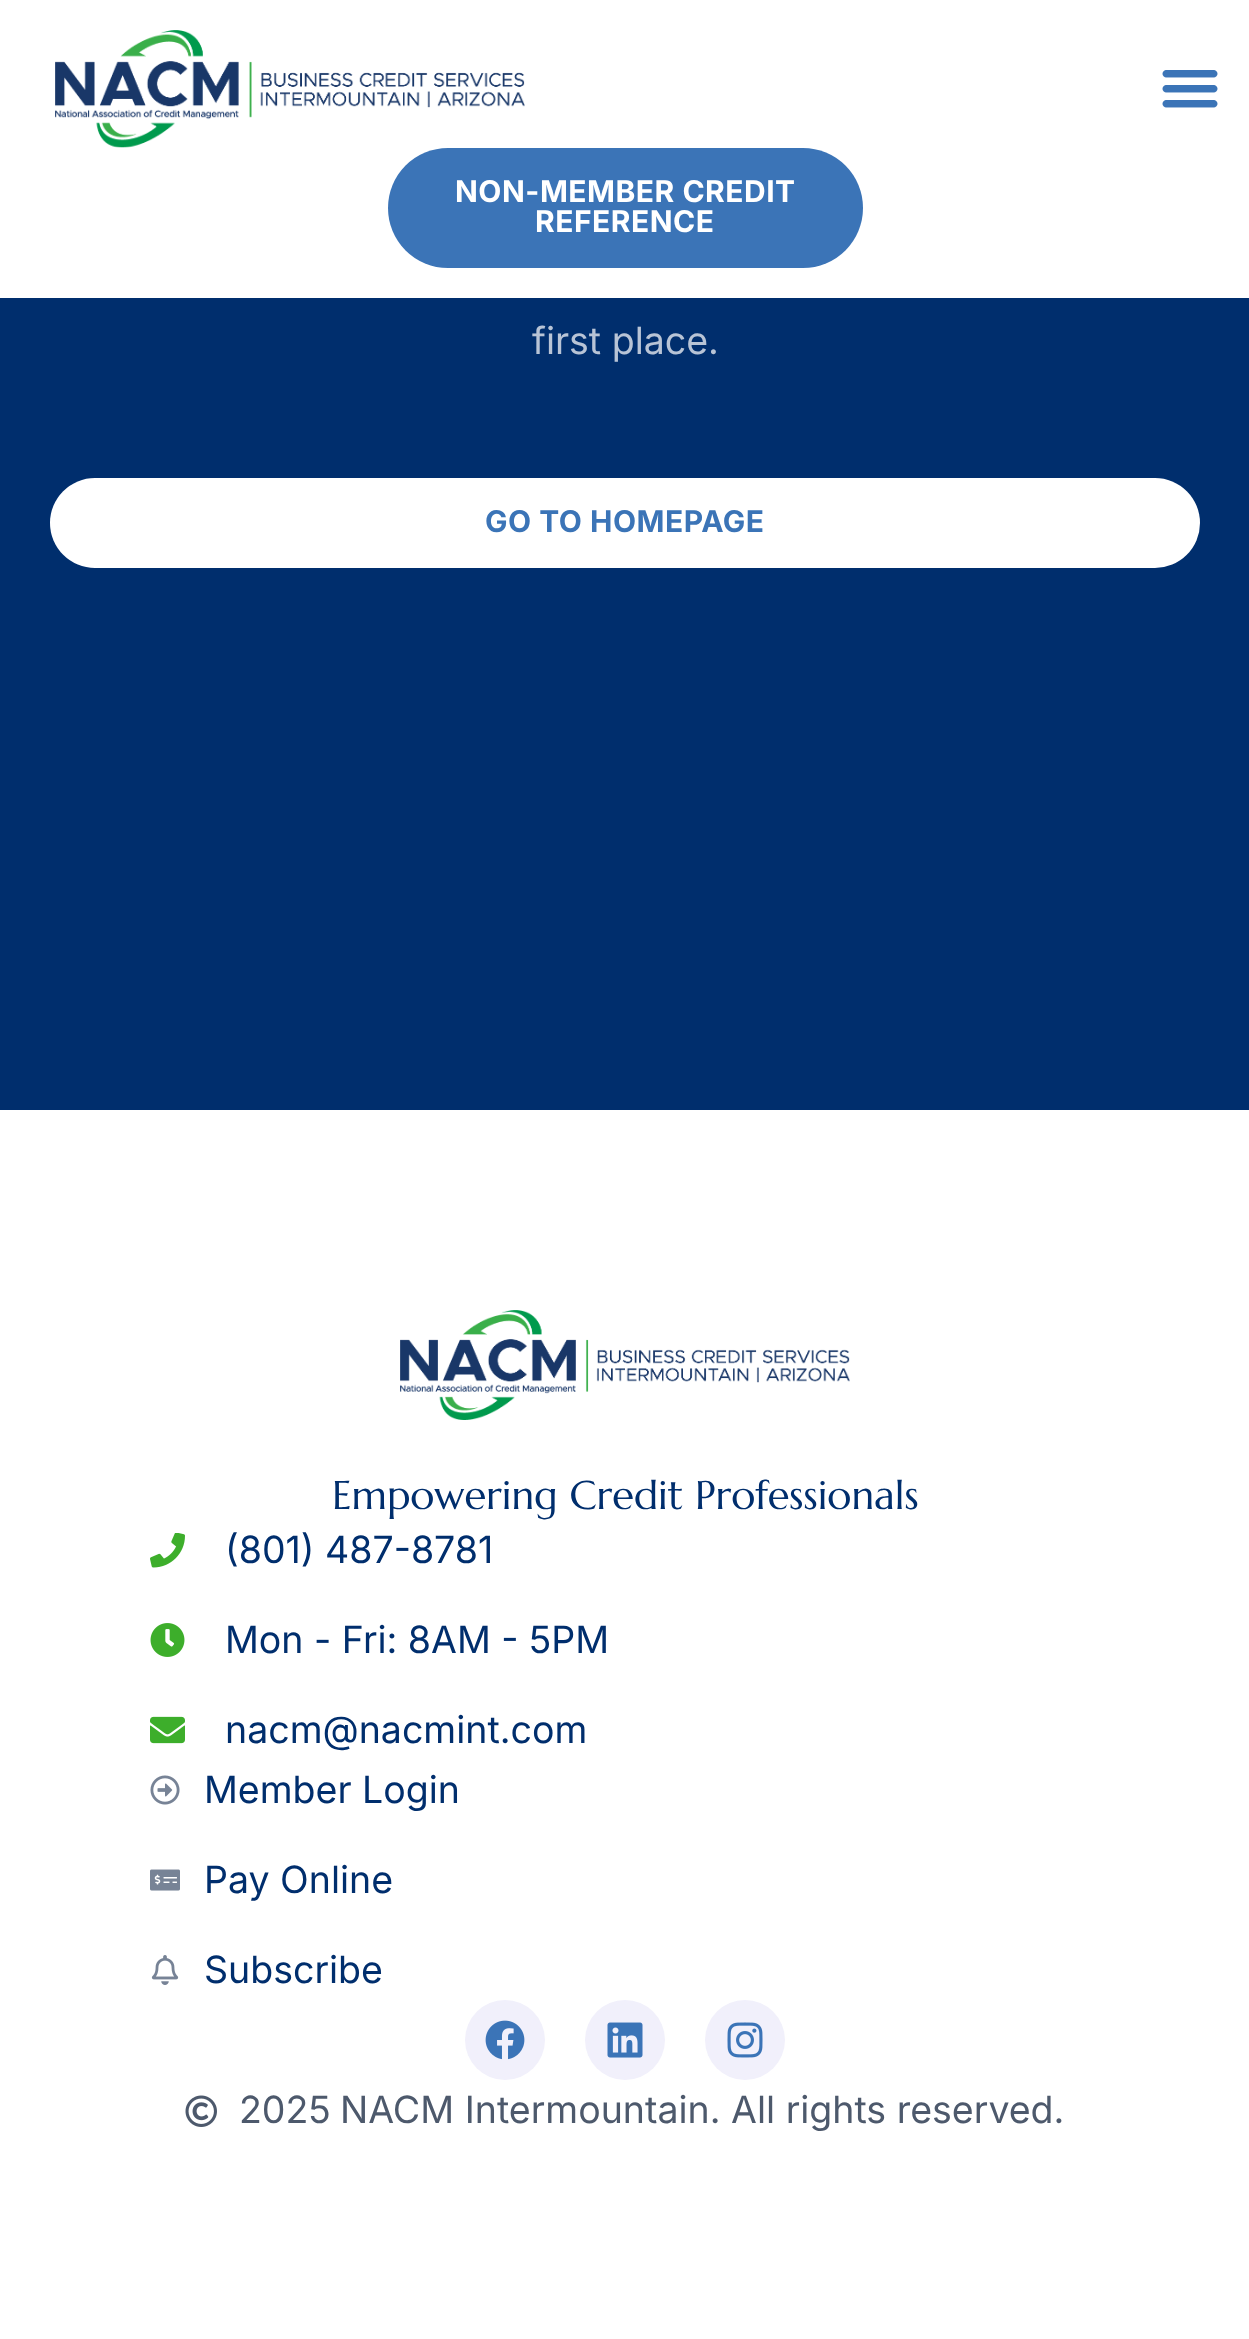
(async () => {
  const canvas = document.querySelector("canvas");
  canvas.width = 1249;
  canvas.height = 2339;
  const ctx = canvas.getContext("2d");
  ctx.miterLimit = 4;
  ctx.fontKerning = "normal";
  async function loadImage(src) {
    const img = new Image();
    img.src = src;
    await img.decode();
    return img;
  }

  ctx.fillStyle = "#ffffff";
  ctx.fillRect(0, 0, 1249, 2339);
  ctx.drawImage(await loadImage("img/1.png"), 55, 30, 470, 118);
  ctx.drawImage(await loadImage("img/2.png"), 1162, 70, 56, 38);
  ctx.fillStyle = "#3b74b7";
  ctx.beginPath();
  ctx.roundRect(388, 148, 475, 120, 60);
  ctx.fill();
  ctx.fillStyle = "#002e6d";
  ctx.fillRect(0, 298, 1249, 812);
  ctx.fillStyle = "#ffffff";
  ctx.beginPath();
  ctx.roundRect(50, 478, 1150, 90, 45);
  ctx.fill();
  ctx.drawImage(await loadImage("img/3.png"), 400, 1310, 450, 110);
  ctx.drawImage(await loadImage("img/4.png"), 150, 1533, 35, 35);
  ctx.drawImage(await loadImage("img/5.png"), 150, 1623, 35, 34);
  ctx.drawImage(await loadImage("img/6.png"), 150, 1716, 35, 28);
  ctx.drawImage(await loadImage("img/7.png"), 150, 1775, 30, 30);
  ctx.drawImage(await loadImage("img/8.png"), 150, 1869, 30, 22);
  ctx.drawImage(await loadImage("img/9.png"), 151, 1955, 28, 30);
  ctx.fillStyle = "#f1f0fb";
  ctx.beginPath();
  ctx.arc(505, 2040, 40, 0, Math.PI * 2);
  ctx.fill();
  ctx.drawImage(await loadImage("img/10.png"), 485, 2020, 40, 40);
  ctx.beginPath();
  ctx.arc(625, 2040, 40, 0, Math.PI * 2);
  ctx.fill();
  ctx.drawImage(await loadImage("img/11.png"), 607, 2022, 36, 36);
  ctx.beginPath();
  ctx.arc(745, 2040, 40, 0, Math.PI * 2);
  ctx.fill();
  ctx.drawImage(await loadImage("img/12.png"), 727, 2022, 36, 36);
  ctx.drawImage(await loadImage("img/13.png"), 185, 2095, 32, 32);
  ctx.letterSpacing = "0.5px";
  ctx.font = "bold 30px Inter";
  ctx.fillStyle = "#ffffff";
  ctx.fillText("NON-MEMBER CREDIT", 455, 202);
  ctx.fillText("REFERENCE", 535, 232);
  ctx.letterSpacing = "0px";
  ctx.font = "37.5px Inter";
  ctx.fillStyle = "#b8c4d6";
  ctx.fillText("first place.", 532, 354);
  ctx.letterSpacing = "0.5px";
  ctx.font = "bold 30px Inter";
  ctx.fillStyle = "#3b74b7";
  ctx.fillText("GO TO HOMEPAGE", 485, 532);
  ctx.letterSpacing = "0px";
  ctx.font = "40px Marcellus";
  ctx.fillStyle = "#002e6d";
  ctx.fillText("Empowering Credit Professionals", 332, 1509);
  ctx.font = "37.5px Inter";
  for (const [text, x, y] of [
    ["(801) 487-8781", 225, 1563],
    ["Mon - Fri: 8AM - 5PM", 225, 1653],
    ["nacm@nacmint.com", 225, 1743],
    ["Member Login", 204, 1803],
    ["Pay Online", 204, 1893],
    ["Subscribe", 204, 1983],
  ]) {
    ctx.fillText(text, x, y);
  }
  ctx.fillStyle = "#4d596c";
  ctx.fillText("2025", 239, 2123);
  ctx.fillText("NACM Intermountain. All rights reserved.", 340, 2123);
})();
